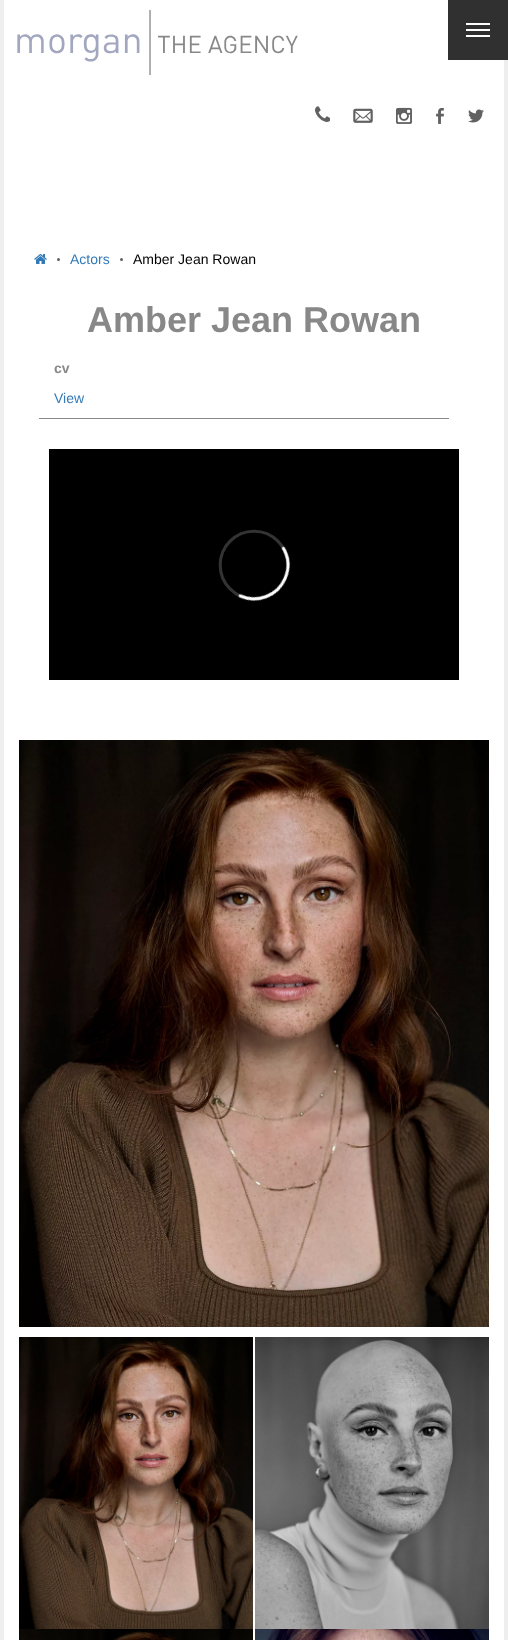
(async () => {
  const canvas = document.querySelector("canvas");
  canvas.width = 508;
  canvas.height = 1640;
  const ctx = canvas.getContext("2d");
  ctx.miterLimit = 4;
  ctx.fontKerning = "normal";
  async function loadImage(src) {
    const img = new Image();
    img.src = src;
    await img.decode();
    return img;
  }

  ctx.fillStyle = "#eeeeee";
  ctx.fillRect(0, 0, 508, 1640);
  ctx.fillStyle = "#ffffff";
  ctx.fillRect(4, 0, 500, 1640);
  ctx.drawImage(await loadImage("img/1.png"), 17, 10, 281, 65);
  for (const [x, y, w, h, color] of [
    [448, 0, 60, 60, "#303030"],
    [466, 29, 24, 2, "#ffffff"],
    [466, 23, 24, 2, "#ffffff"],
    [466, 35, 24, 2, "#ffffff"],
  ]) {
    ctx.fillStyle = color;
    ctx.fillRect(x, y, w, h);
  }
  ctx.drawImage(await loadImage("img/2.png"), 315, 106, 15, 16);
  ctx.drawImage(await loadImage("img/3.png"), 353, 108, 20, 15);
  ctx.drawImage(await loadImage("img/4.png"), 396, 107, 16, 17);
  ctx.drawImage(await loadImage("img/5.png"), 436, 108, 8, 16);
  ctx.drawImage(await loadImage("img/6.png"), 468, 109, 16, 14);
  ctx.drawImage(await loadImage("img/7.png"), 34, 254, 13, 10);
  ctx.fillStyle = "#616161";
  ctx.beginPath();
  ctx.arc(58.5, 259.5, 1.5, 0, Math.PI * 2);
  ctx.fill();
  ctx.beginPath();
  ctx.arc(121.5, 259.5, 1.5, 0, Math.PI * 2);
  ctx.fill();
  ctx.fillStyle = "#888888";
  ctx.fillRect(39, 418, 410, 1);
  ctx.drawImage(await loadImage("img/8.png"), 49, 449, 410, 231);
  ctx.drawImage(await loadImage("img/9.png"), 19, 740, 470, 587);
  ctx.drawImage(await loadImage("img/10.png"), 19, 1337, 234, 292);
  ctx.drawImage(await loadImage("img/11.png"), 255, 1337, 234, 292);
  ctx.drawImage(await loadImage("img/12.png"), 19, 1629, 234, 11);
  ctx.drawImage(await loadImage("img/13.png"), 255, 1629, 234, 11);
  ctx.font = "14px Liberation Sans";
  ctx.fillStyle = "#337ab7";
  ctx.fillText("Actors", 70, 264);
  ctx.fillStyle = "#000000";
  ctx.fillText("Amber Jean Rowan", 133, 264);
  ctx.font = "bold 36px Liberation Sans";
  ctx.fillStyle = "#888888";
  ctx.fillText("Amber Jean Rowan", 87, 332);
  ctx.font = "bold 14px Liberation Sans";
  ctx.fillText("cv", 54, 373);
  ctx.font = "14px Liberation Sans";
  ctx.fillStyle = "#337ab7";
  ctx.fillText("View", 54, 403);
})();
